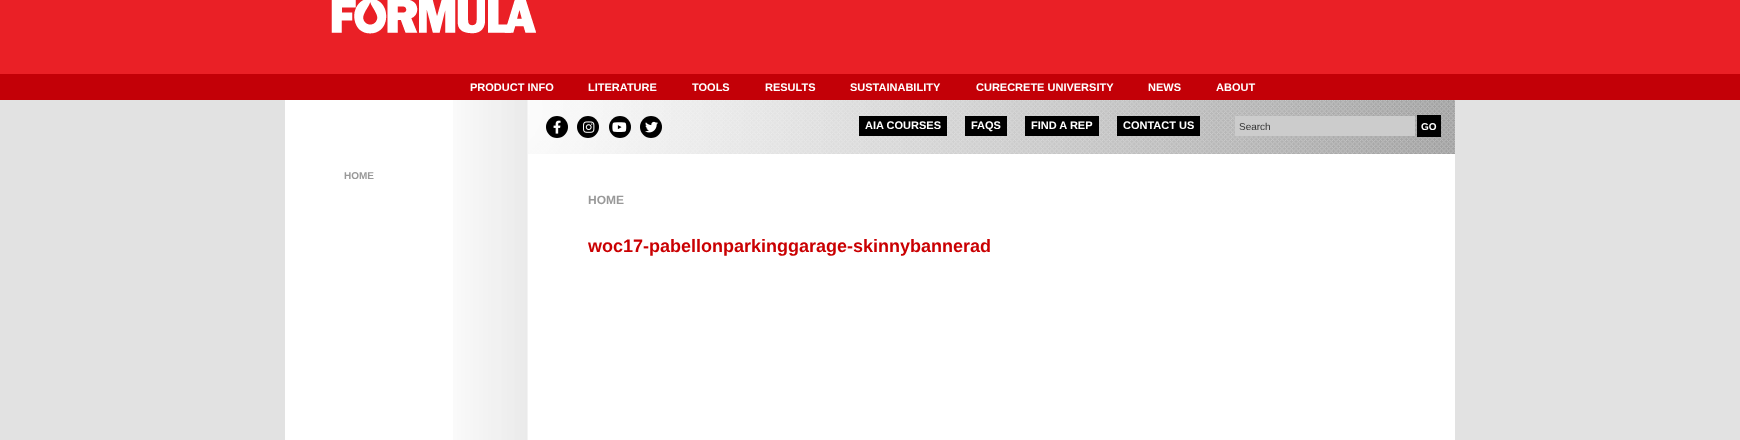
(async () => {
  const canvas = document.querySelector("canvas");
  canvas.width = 1740;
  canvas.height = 440;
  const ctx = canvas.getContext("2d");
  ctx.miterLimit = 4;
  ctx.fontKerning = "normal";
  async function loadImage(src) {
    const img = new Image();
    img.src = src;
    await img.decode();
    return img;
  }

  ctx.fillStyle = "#e2e2e2";
  ctx.fillRect(0, 0, 1740, 440);
  ctx.fillStyle = "#ea2026";
  ctx.fillRect(0, 0, 1740, 74);
  ctx.drawImage(await loadImage("img/1.png"), 331, 0, 205, 34);
  ctx.fillStyle = "#c30007";
  ctx.fillRect(0, 74, 1740, 26);
  ctx.fillStyle = "#ffffff";
  ctx.fillRect(285, 100, 1170, 340);
  ctx.drawImage(await loadImage("img/2.png"), 453, 100, 75, 340);
  ctx.drawImage(await loadImage("img/3.png"), 528, 100, 927, 54);
  ctx.fillStyle = "#000000";
  ctx.beginPath();
  ctx.arc(557, 127, 11, 0, Math.PI * 2);
  ctx.fill();
  ctx.drawImage(await loadImage("img/4.png"), 553, 120, 8, 14);
  ctx.beginPath();
  ctx.arc(588, 127, 11, 0, Math.PI * 2);
  ctx.fill();
  ctx.drawImage(await loadImage("img/5.png"), 583, 121, 12, 12);
  ctx.beginPath();
  ctx.arc(620, 127, 11, 0, Math.PI * 2);
  ctx.fill();
  ctx.drawImage(await loadImage("img/6.png"), 612, 122, 15, 10);
  ctx.beginPath();
  ctx.arc(651, 127, 11, 0, Math.PI * 2);
  ctx.fill();
  ctx.drawImage(await loadImage("img/7.png"), 645, 121, 13, 12);
  for (const [x, y, w, h, color] of [
    [859, 116, 88, 20, "#000000"],
    [965, 116, 42, 20, "#000000"],
    [1025, 116, 74, 20, "#000000"],
    [1117, 116, 83, 20, "#000000"],
    [1235, 116, 180, 20, "#cccccc"],
    [1417, 115, 24, 22, "#000000"],
  ]) {
    ctx.fillStyle = color;
    ctx.fillRect(x, y, w, h);
  }
  ctx.font = "bold 11px Liberation Sans";
  ctx.fillStyle = "#ffffff";
  for (const [text, x, y] of [
    ["PRODUCT INFO", 470, 91],
    ["LITERATURE", 588, 91],
    ["TOOLS", 692, 91],
    ["RESULTS", 765, 91],
    ["SUSTAINABILITY", 850, 91],
    ["CURECRETE UNIVERSITY", 976, 91],
    ["NEWS", 1148, 91],
    ["ABOUT", 1216, 91],
  ]) {
    ctx.fillText(text, x, y);
  }
  ctx.font = "bold 10px Liberation Sans";
  ctx.fillStyle = "#999999";
  ctx.fillText("HOME", 344, 179);
  ctx.font = "bold 11px Liberation Sans";
  ctx.fillStyle = "#ffffff";
  for (const [text, x, y] of [
    ["AIA COURSES", 865, 129],
    ["FAQS", 971, 129],
    ["FIND A REP", 1031, 129],
    ["CONTACT US", 1123, 129],
  ]) {
    ctx.fillText(text, x, y);
  }
  ctx.font = "10px Liberation Sans";
  ctx.fillStyle = "#333333";
  ctx.fillText("Search", 1239, 130);
  ctx.font = "bold 10px Liberation Sans";
  ctx.fillStyle = "#ffffff";
  ctx.fillText("GO", 1421, 130);
  ctx.font = "bold 12px Liberation Sans";
  ctx.fillStyle = "#999999";
  ctx.fillText("HOME", 588, 204);
  ctx.font = "bold 18px Liberation Sans";
  ctx.fillStyle = "#ca0002";
  ctx.fillText("woc17-pabellonparkinggarage-skinnybannerad", 588, 252);
})();
